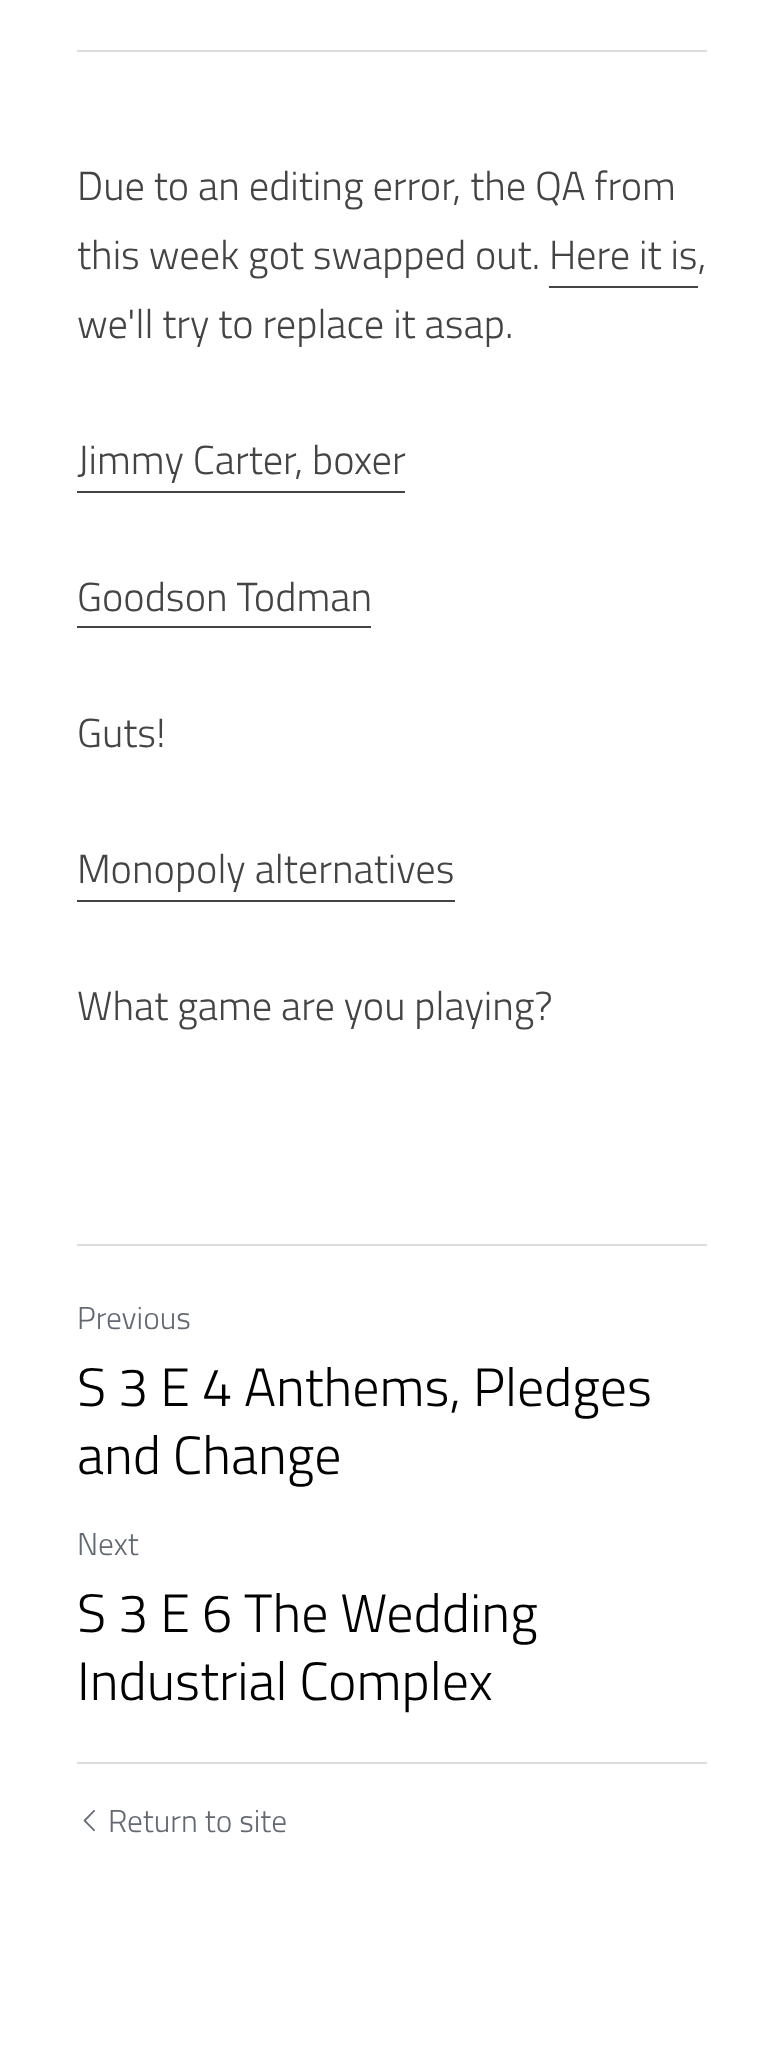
(async () => {
  const canvas = document.querySelector("canvas");
  canvas.width = 781;
  canvas.height = 2057;
  const ctx = canvas.getContext("2d");
  ctx.miterLimit = 4;
  ctx.fontKerning = "normal";
  async function loadImage(src) {
    const img = new Image();
    img.src = src;
    await img.decode();
    return img;
  }

  ctx.fillStyle = "#ffffff";
  ctx.fillRect(0, 0, 781, 2057);
  for (const [x, y, w, h, color] of [
    [77, 50, 630, 2, "#dddddd"],
    [549, 286, 149, 2, "#444444"],
    [77, 491, 328, 2, "#444444"],
    [77, 626, 294, 2, "#444444"],
    [77, 900, 378, 2, "#444444"],
    [77, 1244, 630, 2, "#dddddd"],
    [77, 1762, 630, 2, "#dddddd"],
  ]) {
    ctx.fillStyle = color;
    ctx.fillRect(x, y, w, h);
  }
  ctx.drawImage(await loadImage("img/1.png"), 83, 1809, 12, 23);
  ctx.font = "300 40.5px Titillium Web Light";
  ctx.fillStyle = "#444444";
  for (const [text, x, y] of [
    ["Due to an editing error, the QA from", 77, 200],
    ["this week got swapped out. Here it is,", 77, 269],
    ["we'll try to replace it asap.", 77, 338],
    ["Jimmy Carter, boxer", 77, 474],
    ["Goodson Todman", 77, 611],
    ["Guts!", 77, 747],
    ["Monopoly alternatives", 77, 883],
    ["What game are you playing?", 77, 1020],
  ]) {
    ctx.fillText(text, x, y);
  }
  ctx.font = "300 31.5px Titillium Web Light";
  ctx.fillStyle = "#636972";
  ctx.fillText("Previous", 77, 1329);
  ctx.font = "300 54px Titillium Web Light";
  ctx.fillStyle = "#000000";
  ctx.fillText("S 3 E 4 Anthems, Pledges", 77, 1406);
  ctx.fillText("and Change", 77, 1474);
  ctx.font = "300 31.5px Titillium Web Light";
  ctx.fillStyle = "#636972";
  ctx.fillText("Next", 77, 1555);
  ctx.font = "300 54px Titillium Web Light";
  ctx.fillStyle = "#000000";
  ctx.fillText("S 3 E 6 The Wedding", 77, 1632);
  ctx.fillText("Industrial Complex", 77, 1700);
  ctx.font = "300 31.5px Titillium Web Light";
  ctx.fillStyle = "#636972";
  ctx.fillText("Return to site", 108, 1832);
})();
